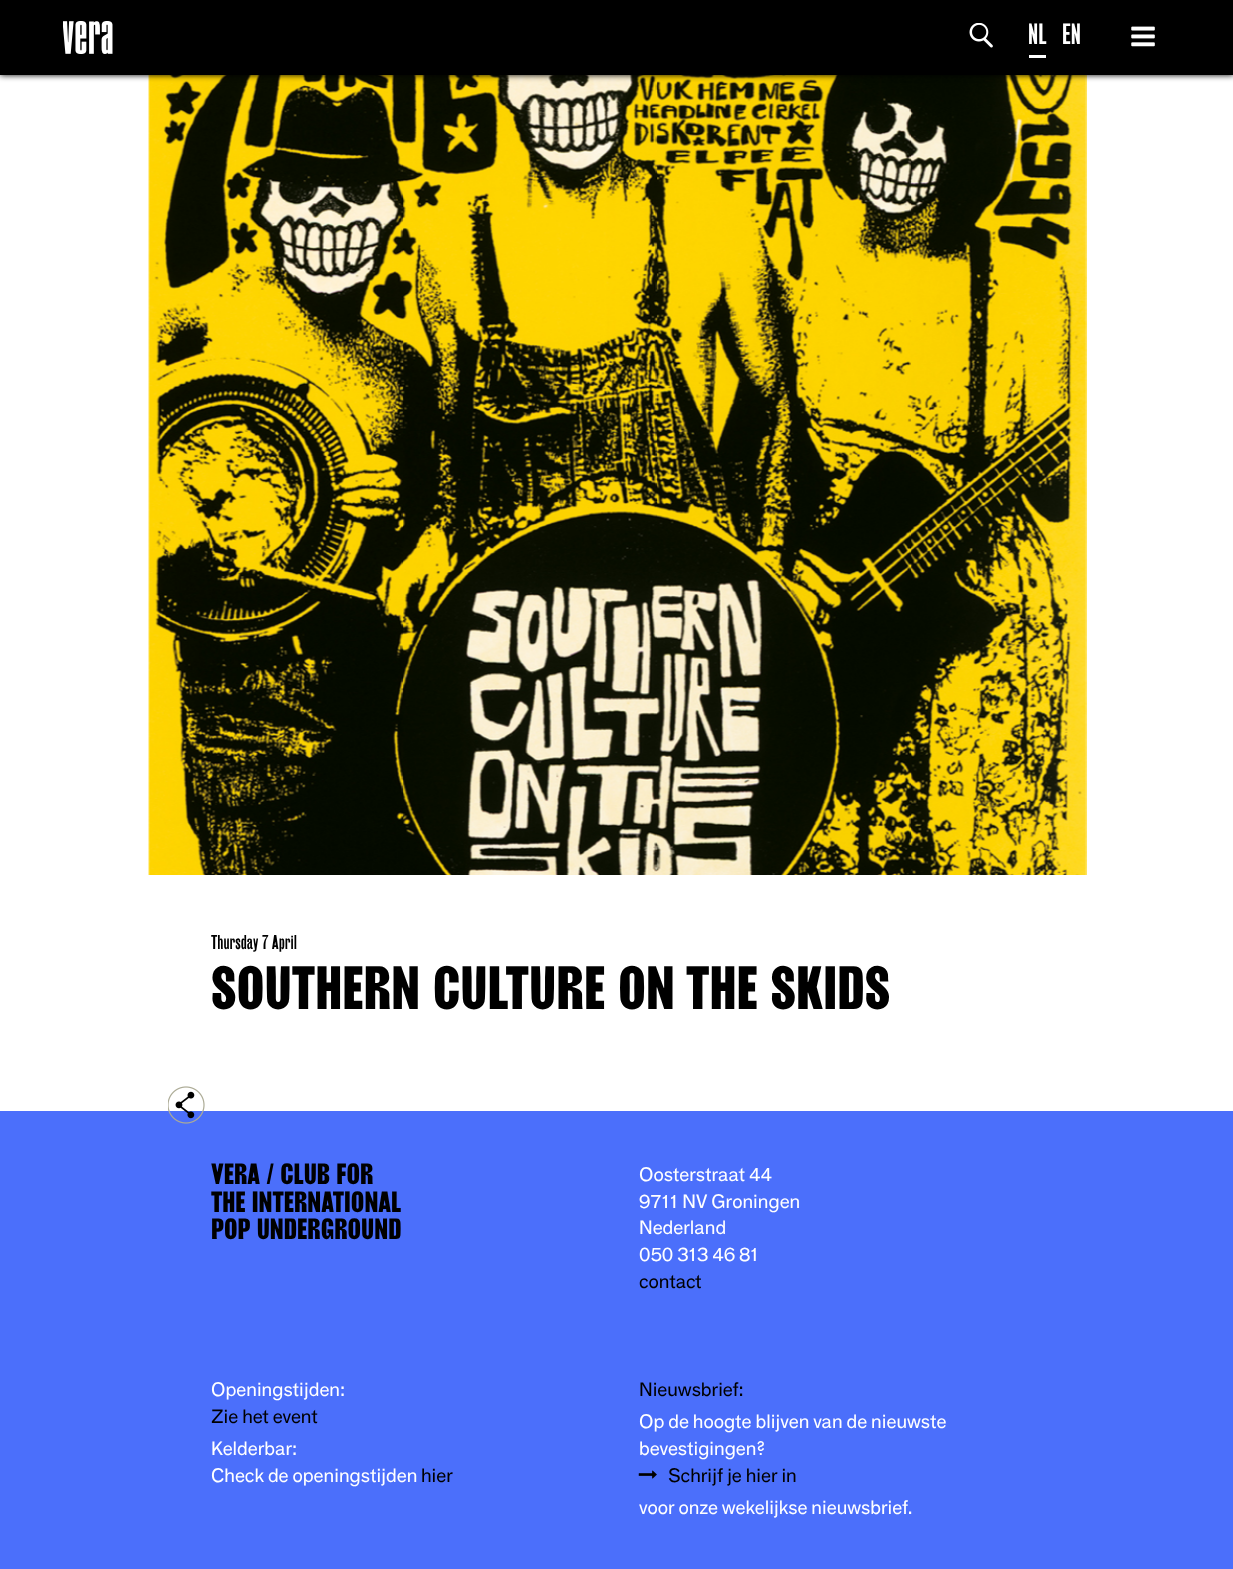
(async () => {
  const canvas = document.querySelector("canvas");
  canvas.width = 1233;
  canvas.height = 1569;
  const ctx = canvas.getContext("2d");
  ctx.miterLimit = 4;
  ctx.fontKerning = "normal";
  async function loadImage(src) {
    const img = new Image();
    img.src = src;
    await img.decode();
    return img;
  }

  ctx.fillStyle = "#ffffff";
  ctx.fillRect(0, 0, 1233, 1569);
  ctx.drawImage(await loadImage("img/4.png"), 148, 75, 939, 800);
  ctx.fillStyle = "#000000";
  ctx.filter = "blur(3px)";
  ctx.beginPath();
  ctx.rect(0, 0, 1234, 75);
  ctx.fill();
  ctx.filter = "none";
  ctx.fillRect(0, 0, 1233, 75);
  ctx.drawImage(await loadImage("img/1.png"), 63, 21, 50, 33);
  ctx.drawImage(await loadImage("img/2.png"), 969, 23, 24, 25);
  ctx.fillStyle = "#ffffff";
  ctx.fillRect(1029, 55, 17, 3);
  ctx.drawImage(await loadImage("img/3.png"), 1131, 26, 24, 21);
  ctx.fillStyle = "#4b6ffb";
  ctx.fillRect(0, 1111, 1233, 458);
  ctx.drawImage(await loadImage("img/5.png"), 168, 1086, 37, 38);
  ctx.drawImage(await loadImage("img/6.png"), 638, 1470, 19, 9);
  ctx.font = "27.5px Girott";
  ctx.fillStyle = "#ffffff";
  ctx.fillText("NL", 1028, 44);
  ctx.fillText("EN", 1062, 44);
  ctx.font = "18.75px Girott";
  ctx.fillStyle = "#000000";
  ctx.fillText("Thursday 7 April", 211, 949);
  ctx.font = "bold 57px Girott";
  ctx.fillText("SOUTHERN CULTURE ON THE SKIDS", 211, 1009);
  ctx.font = "bold 27.5px Girott";
  for (const [text, x, y] of [
    ["VERA / CLUB FOR", 211, 1184],
    ["THE INTERNATIONAL", 211, 1212],
    ["POP UNDERGROUND", 211, 1239],
  ]) {
    ctx.fillText(text, x, y);
  }
  ctx.font = "18.75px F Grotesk";
  ctx.fillStyle = "#ffffff";
  for (const [text, x, y] of [
    ["Oosterstraat 44", 639, 1181],
    ["9711 NV Groningen", 639, 1208],
    ["Nederland", 639, 1234],
    ["050 313 46 81", 639, 1261],
  ]) {
    ctx.fillText(text, x, y);
  }
  ctx.fillStyle = "#000000";
  ctx.fillText("contact", 639, 1288);
  ctx.fillStyle = "#ffffff";
  ctx.fillText("Openingstijden:", 211, 1396);
  ctx.fillStyle = "#000000";
  ctx.fillText("Zie het event", 211, 1423);
  ctx.fillStyle = "#ffffff";
  ctx.fillText("Kelderbar:", 211, 1455);
  ctx.fillText("Check de openingstijden", 211, 1482);
  ctx.fillStyle = "#000000";
  ctx.fillText("hier", 421, 1482);
  ctx.fillText("Nieuwsbrief:", 639, 1396);
  ctx.fillStyle = "#ffffff";
  ctx.fillText("Op de hoogte blijven van de nieuwste", 639, 1428);
  ctx.fillText("bevestigingen?", 639, 1455);
  ctx.fillStyle = "#000000";
  ctx.fillText("Schrijf je hier in", 668, 1482);
  ctx.fillStyle = "#ffffff";
  ctx.fillText("voor onze wekelijkse nieuwsbrief.", 639, 1514);
})();
